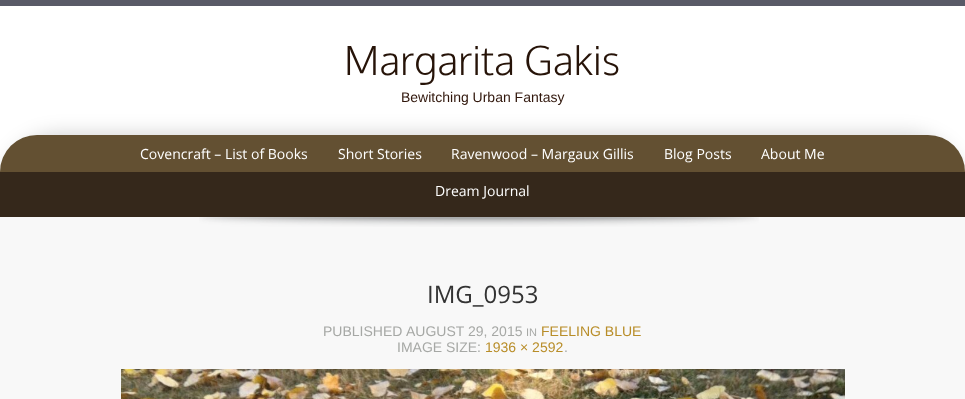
(async () => {
  const canvas = document.querySelector("canvas");
  canvas.width = 965;
  canvas.height = 399;
  const ctx = canvas.getContext("2d");
  ctx.miterLimit = 4;
  ctx.fontKerning = "normal";
  async function loadImage(src) {
    const img = new Image();
    img.src = src;
    await img.decode();
    return img;
  }
  let path;

  ctx.fillStyle = "#ffffff";
  ctx.fillRect(0, 0, 965, 399);
  ctx.fillStyle = "#595a67";
  ctx.fillRect(0, 0, 965, 6);
  ctx.fillStyle = "rgba(0, 0, 0, 0.2)";
  ctx.filter = "blur(10px)";
  ctx.beginPath();
  ctx.roundRect(0, 135, 965, 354, 60);
  ctx.fill();
  ctx.filter = "none";
  ctx.fillStyle = "#f8f8f8";
  path = new Path2D("M60 135H905C938 135 965 162 965 195V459H0V195C0 162 27 135 60 135Z");
  ctx.fill(path);
  ctx.fillStyle = "#635032";
  ctx.beginPath();
  ctx.roundRect(0, 135, 965, 37, [37, 37, 0, 0]);
  ctx.fill();
  ctx.fillStyle = "#35281b";
  ctx.fillRect(0, 172, 965, 45);
  ctx.drawImage(await loadImage("img/1.png"), 199, 217, 560, 10);
  ctx.drawImage(await loadImage("img/2.png"), 121, 369, 724, 30);
  ctx.font = "300 40px Oxygen";
  ctx.fillStyle = "#261308";
  ctx.fillText("Margarita Gakis", 344, 75);
  ctx.font = "14px Liberation Sans";
  ctx.fillStyle = "#30160b";
  ctx.fillText("Bewitching Urban Fantasy", 401, 102);
  ctx.font = "14px Open Sans";
  ctx.fillStyle = "#ffffff";
  for (const [text, x, y] of [
    ["Covencraft – List of Books", 140, 159],
    ["Short Stories", 338, 159],
    ["Ravenwood – Margaux Gillis", 451, 159],
    ["Blog Posts", 664, 159],
    ["About Me", 761, 159],
    ["Dream Journal", 435, 196],
  ]) {
    ctx.fillText(text, x, y);
  }
  ctx.font = "24px Open Sans";
  ctx.fillStyle = "#333333";
  ctx.fillText("IMG_0953", 427, 303);
  ctx.font = "14px Liberation Sans";
  ctx.fillStyle = "#a6a8a5";
  ctx.fillText("PUBLISHED", 323, 336);
  ctx.fillText("AUGUST 29, 2015", 406, 336);
  ctx.font = "11px Liberation Sans";
  ctx.fillText("IN", 526, 336);
  ctx.font = "14px Liberation Sans";
  ctx.fillStyle = "#b88d28";
  ctx.fillText("FEELING BLUE", 541, 336);
  ctx.fillStyle = "#a6a8a5";
  ctx.fillText("IMAGE SIZE:", 397, 352);
  ctx.fillStyle = "#b88d28";
  ctx.fillText("1936 × 2592", 485, 352);
  ctx.fillStyle = "#a6a8a5";
  ctx.fillText(".", 564, 352);
})();
